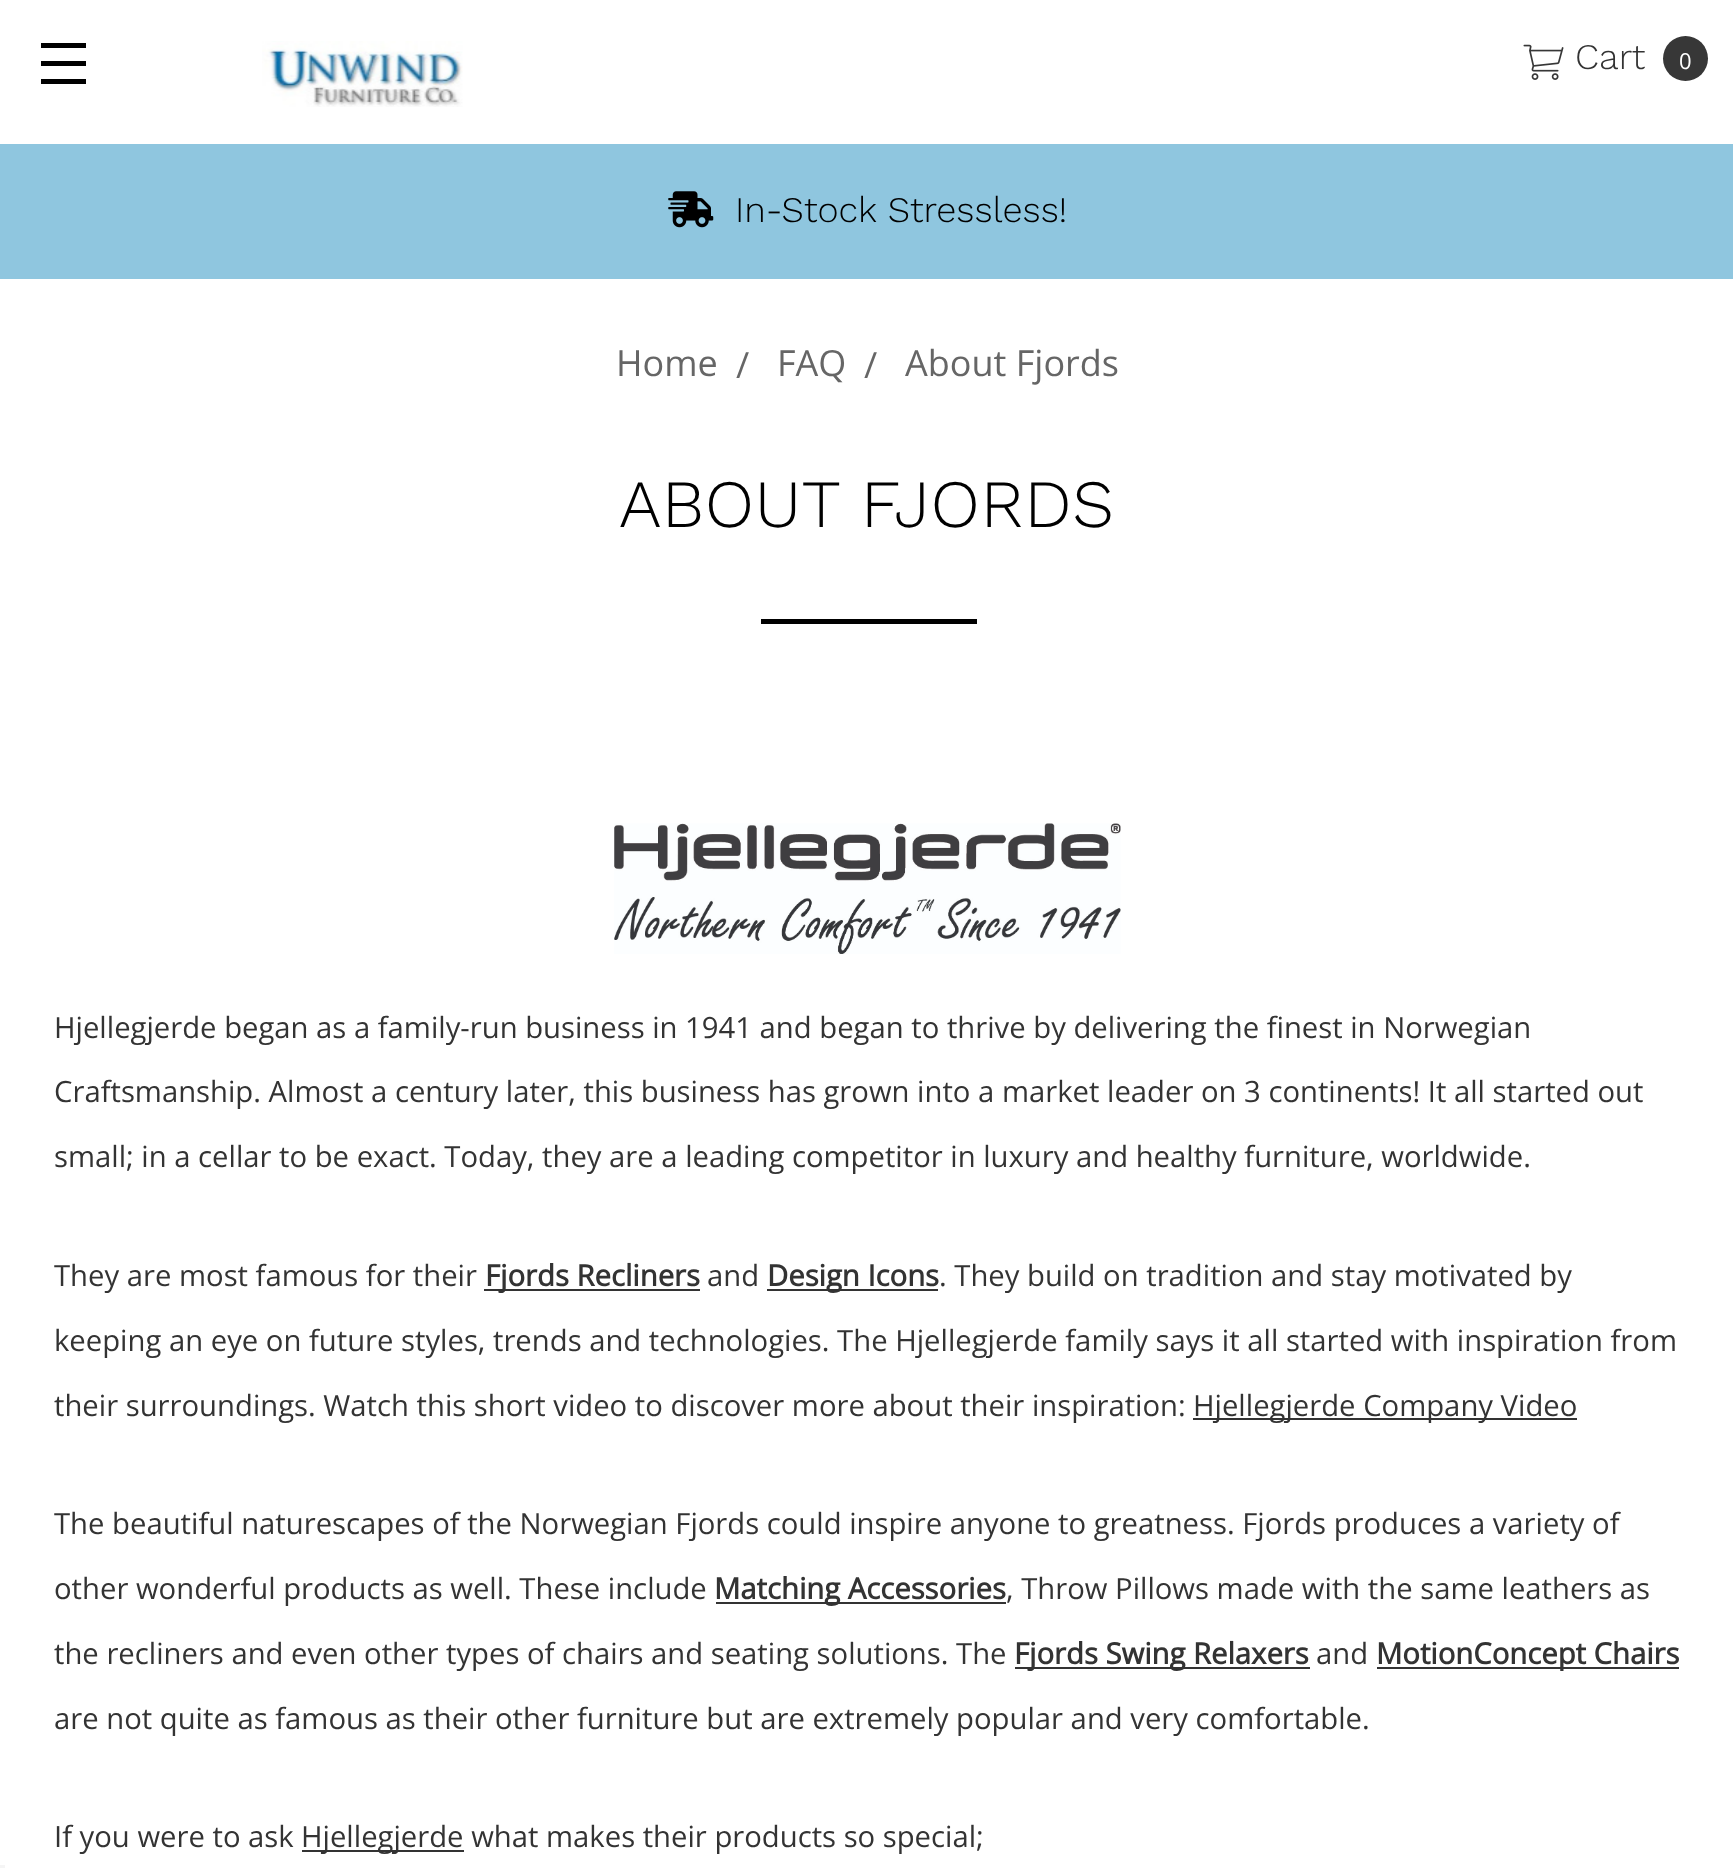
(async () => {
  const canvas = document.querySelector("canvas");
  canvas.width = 1733;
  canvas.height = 1868;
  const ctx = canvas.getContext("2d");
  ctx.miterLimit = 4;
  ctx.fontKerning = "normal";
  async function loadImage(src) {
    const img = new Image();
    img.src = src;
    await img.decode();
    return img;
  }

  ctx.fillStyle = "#ffffff";
  ctx.fillRect(0, 0, 1733, 1868);
  for (const [x, y, w, h, color] of [
    [41, 61, 45, 5, "#000000"],
    [41, 43, 45, 5, "#000000"],
    [41, 79, 45, 5, "#000000"],
  ]) {
    ctx.fillStyle = color;
    ctx.fillRect(x, y, w, h);
  }
  ctx.drawImage(await loadImage("img/1.png"), 262, 41, 201, 66);
  ctx.drawImage(await loadImage("img/2.png"), 1523, 44, 41, 36);
  ctx.fillStyle = "#373737";
  ctx.beginPath();
  ctx.arc(1685.5, 58.5, 22.5, 0, Math.PI * 2);
  ctx.fill();
  ctx.fillStyle = "#8fc6df";
  ctx.fillRect(0, 144, 1733, 135);
  ctx.drawImage(await loadImage("img/3.png"), 668, 191, 46, 37);
  ctx.fillStyle = "#000000";
  ctx.fillRect(761, 619, 216, 5);
  ctx.drawImage(await loadImage("img/4.png"), 614, 823, 507, 131);
  for (const [x, y, w, h, color] of [
    [484, 1289, 216, 2, "#333333"],
    [767, 1289, 171, 2, "#333333"],
    [1193, 1418, 384, 2, "#333333"],
    [716, 1602, 290, 2, "#333333"],
    [1015, 1667, 295, 2, "#333333"],
    [1377, 1667, 302, 2, "#333333"],
    [302, 1850, 162, 2, "#333333"],
    [0, 1865, 5, 3, "#f5f5f5"],
  ]) {
    ctx.fillStyle = color;
    ctx.fillRect(x, y, w, h);
  }
  ctx.font = "300 36px Work Sans";
  ctx.fillStyle = "#333333";
  ctx.fillText("Cart", 1575, 69);
  ctx.font = "22px Open Sans";
  ctx.fillStyle = "#ffffff";
  ctx.fillText("0", 1679, 69);
  ctx.font = "300 36px Work Sans";
  ctx.fillStyle = "#000000";
  ctx.fillText("In-Stock Stressless!", 735, 222);
  ctx.font = "36px Open Sans";
  ctx.fillStyle = "#666666";
  for (const [text, x, y] of [
    ["Home", 616, 376],
    ["/", 736, 378],
    ["FAQ", 777, 376],
    ["/", 864, 378],
    ["About Fjords", 905, 376],
  ]) {
    ctx.fillText(text, x, y);
  }
  ctx.letterSpacing = "0.5px";
  ctx.font = "300 67.5px Work Sans";
  ctx.fillStyle = "#000000";
  ctx.fillText("ABOUT FJORDS", 619, 527);
  ctx.letterSpacing = "0px";
  ctx.font = "29.25px Open Sans";
  ctx.fillStyle = "#333333";
  for (const [text, x, y] of [
    ["Hjellegjerde began as a family-run business in 1941 and began to thrive by delivering the finest in Norwegian", 54, 1038],
    ["Craftsmanship. Almost a century later, this business has grown into a market leader on 3 continents! It all started out", 54, 1102],
    ["small; in a cellar to be exact. Today, they are a leading competitor in luxury and healthy furniture, worldwide.", 54, 1167],
    ["They are most famous for their", 54, 1286],
  ]) {
    ctx.fillText(text, x, y);
  }
  ctx.font = "bold 29.25px Open Sans";
  ctx.fillText("Fjords Recliners", 485, 1286);
  ctx.font = "29.25px Open Sans";
  ctx.fillText("and", 707, 1286);
  ctx.font = "bold 29.25px Open Sans";
  ctx.fillText("Design Icons", 767, 1286);
  ctx.font = "29.25px Open Sans";
  for (const [text, x, y] of [
    [". They build on tradition and stay motivated by", 939, 1286],
    ["keeping an eye on future styles, trends and technologies. The Hjellegjerde family says it all started with inspiration from", 54, 1351],
    ["their surroundings. Watch this short video to discover more about their inspiration:", 54, 1416],
    ["Hjellegjerde Company Video", 1193, 1416],
    ["The beautiful naturescapes of the Norwegian Fjords could inspire anyone to greatness. Fjords produces a variety of", 54, 1534],
    ["other wonderful products as well. These include", 54, 1599],
  ]) {
    ctx.fillText(text, x, y);
  }
  ctx.font = "bold 29.25px Open Sans";
  ctx.fillText("Matching Accessories", 714, 1599);
  ctx.font = "29.25px Open Sans";
  ctx.fillText(", Throw Pillows made with the same leathers as", 1006, 1599);
  ctx.fillText("the recliners and even other types of chairs and seating solutions. The", 54, 1664);
  ctx.font = "bold 29.25px Open Sans";
  ctx.fillText("Fjords Swing Relaxers", 1014, 1664);
  ctx.font = "29.25px Open Sans";
  ctx.fillText("and", 1316, 1664);
  ctx.font = "bold 29.25px Open Sans";
  ctx.fillText("MotionConcept Chairs", 1376, 1664);
  ctx.font = "29.25px Open Sans";
  for (const [text, x, y] of [
    ["are not quite as famous as their other furniture but are extremely popular and very comfortable.", 54, 1729],
    ["If you were to ask", 54, 1847],
    ["Hjellegjerde what makes their products so special;", 301, 1847],
  ]) {
    ctx.fillText(text, x, y);
  }
})();
